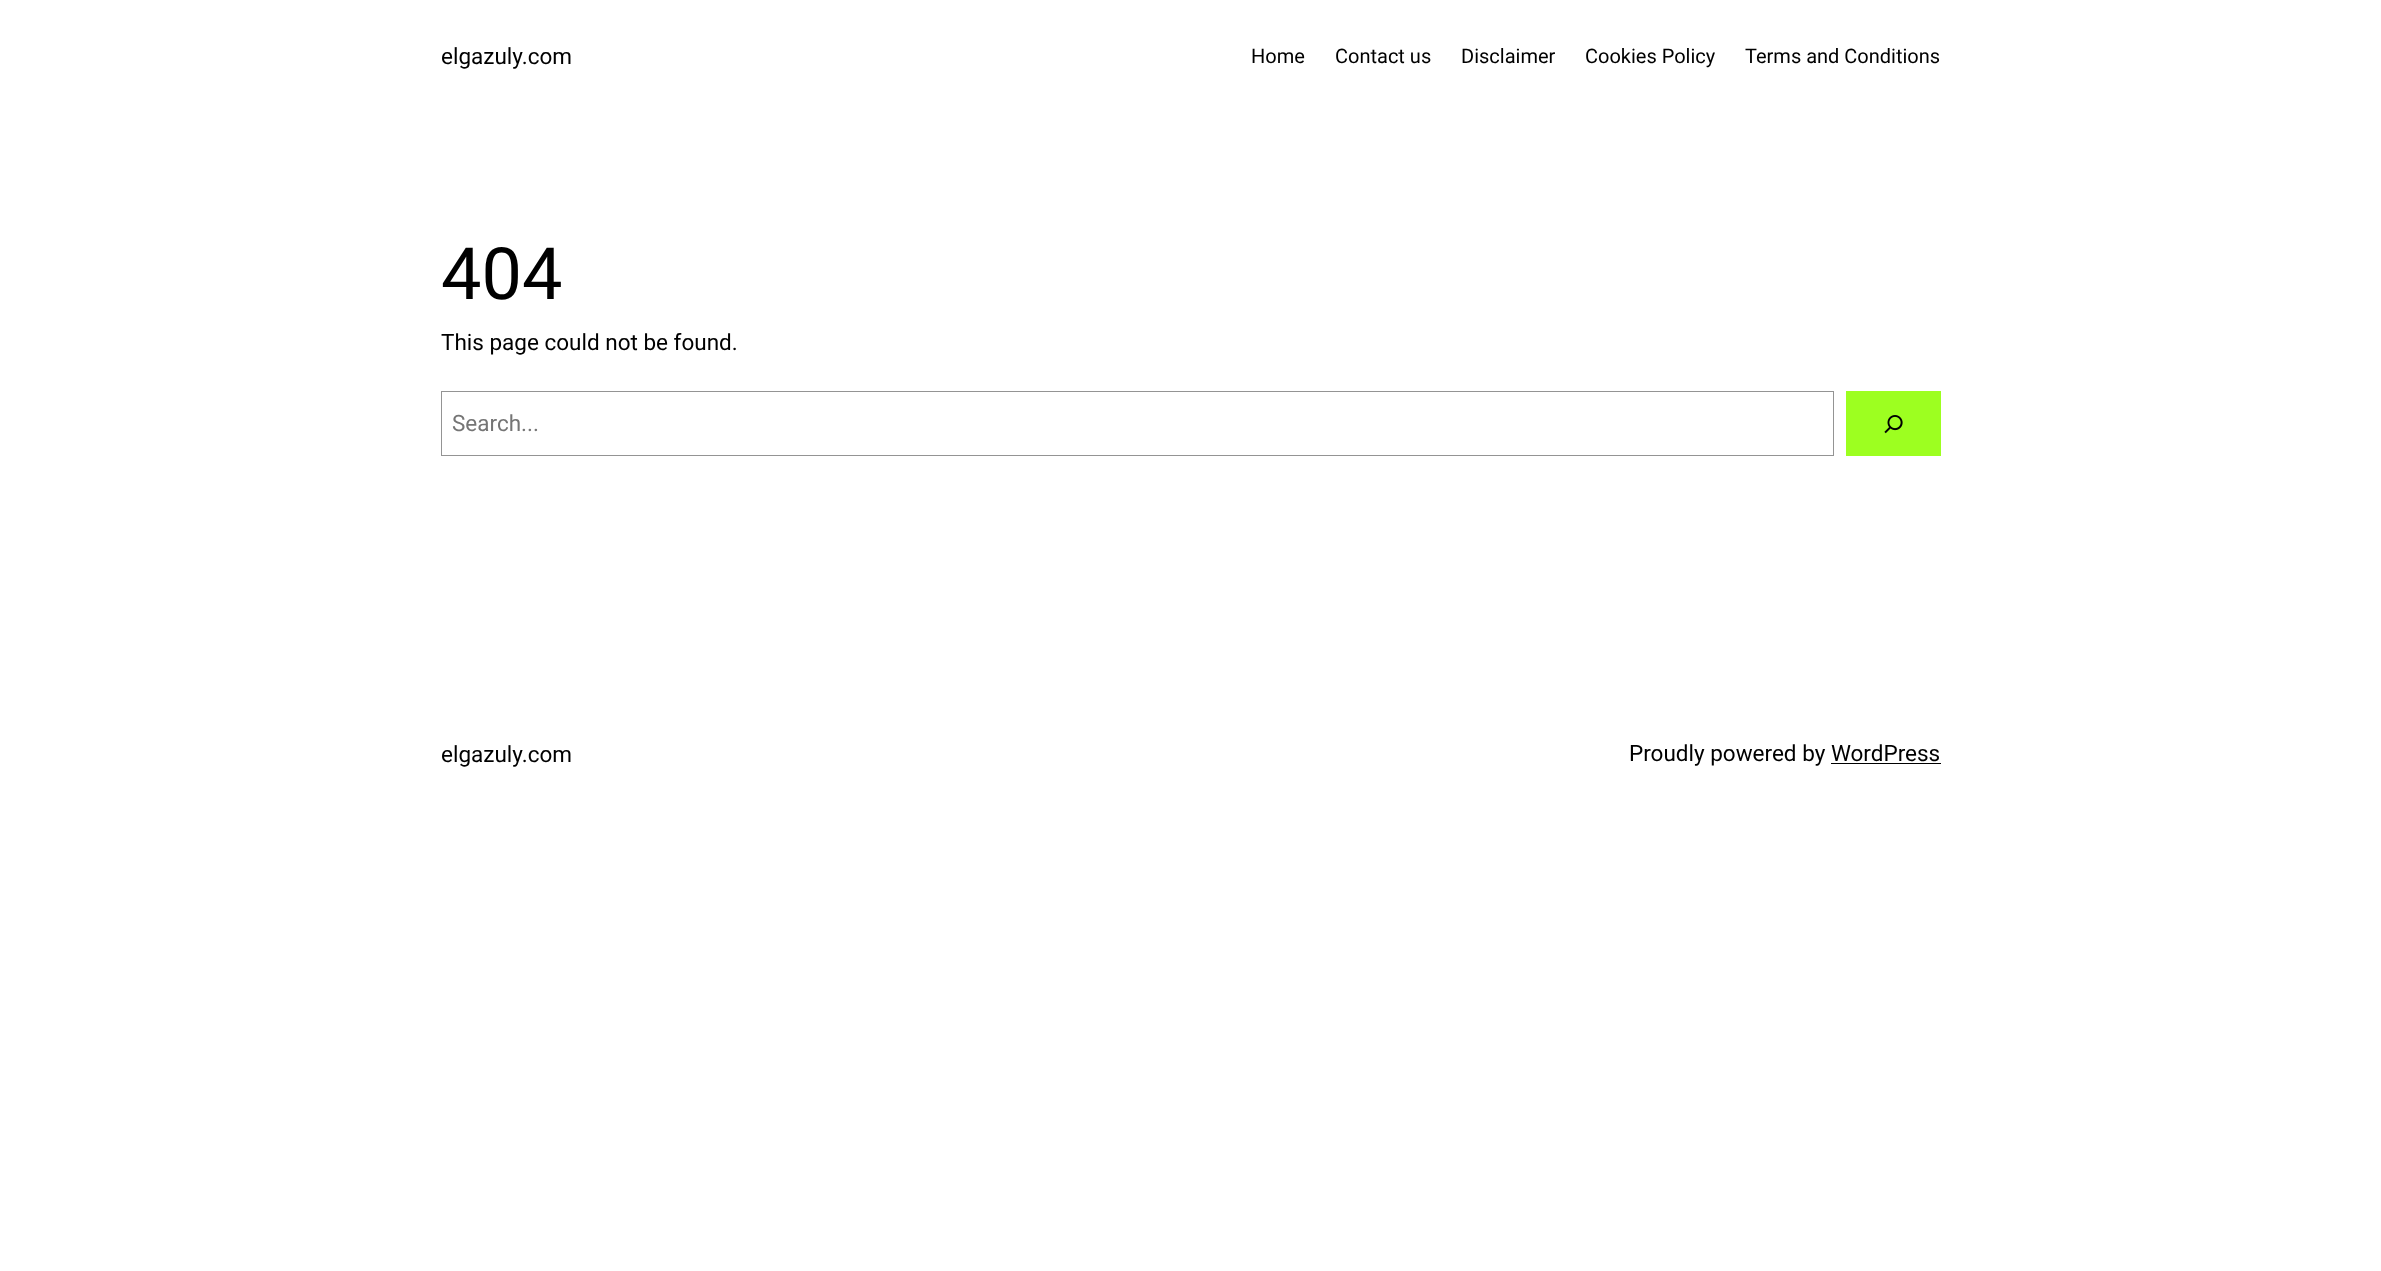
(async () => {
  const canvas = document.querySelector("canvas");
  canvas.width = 2381;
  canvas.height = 1271;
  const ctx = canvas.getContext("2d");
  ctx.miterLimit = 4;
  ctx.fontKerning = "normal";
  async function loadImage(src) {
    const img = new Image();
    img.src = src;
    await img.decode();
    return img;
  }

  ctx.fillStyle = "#ffffff";
  ctx.fillRect(0, 0, 2381, 1271);
  ctx.strokeStyle = "#949494";
  ctx.strokeRect(441.5, 391.5, 1392, 64);
  ctx.fillStyle = "#9dff20";
  ctx.fillRect(1846, 391, 95, 65);
  ctx.drawImage(await loadImage("img/1.png"), 1884, 415, 19, 19);
  ctx.fillStyle = "#000000";
  ctx.fillRect(1831, 763, 110, 1);
  ctx.font = "22.5px Roboto";
  ctx.fillText("elgazuly.com", 441, 64);
  ctx.font = "20px Roboto";
  for (const [text, x, y] of [
    ["Home", 1251, 63],
    ["Contact us", 1335, 63],
    ["Disclaimer", 1461, 63],
    ["Cookies Policy", 1585, 63],
    ["Terms and Conditions", 1745, 63],
  ]) {
    ctx.fillText(text, x, y);
  }
  ctx.font = "72px Roboto";
  ctx.fillText("404", 441, 299);
  ctx.font = "22.5px Roboto";
  ctx.fillText("This page could not be found.", 441, 350);
  ctx.fillStyle = "#757575";
  ctx.fillText("Search...", 452, 431);
  ctx.fillStyle = "#000000";
  ctx.fillText("elgazuly.com", 441, 762);
  ctx.fillText("Proudly powered by WordPress", 1629, 761);
})();
